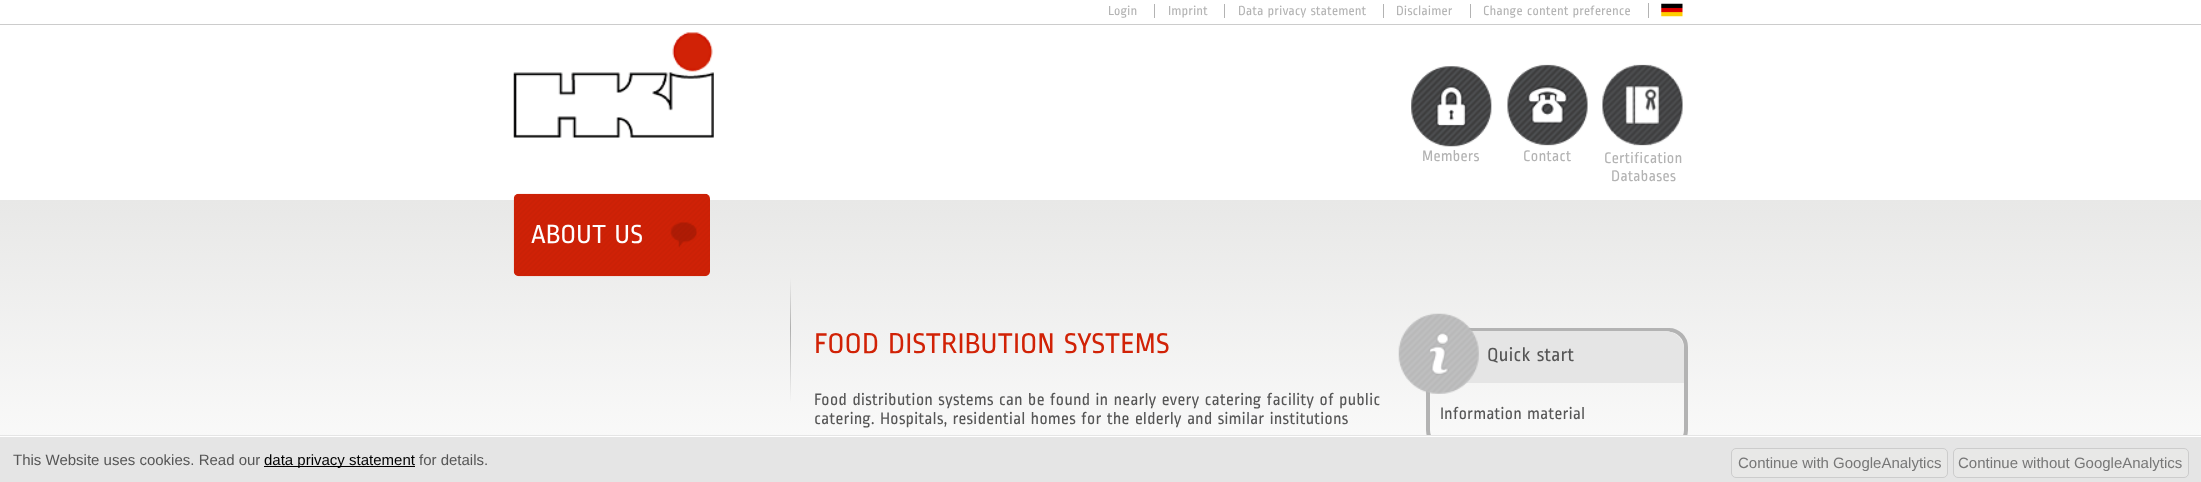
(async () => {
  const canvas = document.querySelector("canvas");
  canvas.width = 2201;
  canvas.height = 482;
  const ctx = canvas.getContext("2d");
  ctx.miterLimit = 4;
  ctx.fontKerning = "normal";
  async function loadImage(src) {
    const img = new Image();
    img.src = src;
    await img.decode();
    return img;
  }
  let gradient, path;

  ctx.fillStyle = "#ffffff";
  ctx.fillRect(0, 0, 2201, 482);
  for (const [x, y, w, h, color] of [
    [0, 24, 2201, 1, "#cccccc"],
    [1154, 4, 1, 14, "#b3b3b3"],
    [1224, 4, 1, 14, "#b3b3b3"],
    [1383, 4, 1, 14, "#b3b3b3"],
    [1470, 4, 1, 14, "#b3b3b3"],
    [1648, 3, 1, 15, "#b3b3b3"],
  ]) {
    ctx.fillStyle = color;
    ctx.fillRect(x, y, w, h);
  }
  ctx.drawImage(await loadImage("img/1.png"), 1661, 3, 22, 14);
  ctx.drawImage(await loadImage("img/2.png"), 513, 32, 201, 106);
  ctx.drawImage(await loadImage("img/3.png"), 1411, 66, 81, 81);
  ctx.drawImage(await loadImage("img/4.png"), 1507, 64, 81, 82);
  ctx.drawImage(await loadImage("img/5.png"), 1602, 64, 81, 82);
  gradient = ctx.createLinearGradient(1101, 200, 1101, 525);
  gradient.addColorStop(0, "#e8e8e7");
  gradient.addColorStop(1, "#ffffff");
  ctx.fillStyle = gradient;
  ctx.fillRect(0, 200, 2201, 235);
  ctx.drawImage(await loadImage("img/6.png"), 513, 193, 197, 84);
  ctx.drawImage(await loadImage("img/7.png"), 670, 222, 27, 26);
  gradient = ctx.createLinearGradient(791, 278, 791, 328);
  gradient.addColorStop(0, "rgba(175, 175, 174, 0)");
  gradient.addColorStop(1, "#afafae");
  ctx.fillStyle = gradient;
  ctx.fillRect(790, 278, 1, 50);
  gradient = ctx.createLinearGradient(791, 328, 791, 403);
  gradient.addColorStop(0, "#afafae");
  gradient.addColorStop(1, "rgba(175, 175, 174, 0)");
  ctx.fillStyle = gradient;
  ctx.fillRect(790, 328, 1, 75);
  ctx.beginPath();
  ctx.roundRect(1428, 330, 258, 117, 17);
  ctx.strokeStyle = "#b3b3b3";
  ctx.lineWidth = 4;
  ctx.stroke();
  ctx.fillStyle = "#e5e5e5";
  ctx.beginPath();
  ctx.roundRect(1430, 331, 254, 52, [18, 19, 0, 0]);
  ctx.fill();
  path = new Path2D("M1448 331H1665C1675 331 1684 340 1684 350V382H1430V349C1430 339 1438 331 1448 331ZM1448 332H1665C1675 332 1682 340 1682 350V382H1431V349C1431 340 1439 332 1448 332Z");
  ctx.fill(path, "evenodd");
  ctx.drawImage(await loadImage("img/8.png"), 1398, 313, 81, 81);
  for (const [x, y, w, h, color] of [
    [0, 437, 2201, 45, "#e5e5e5"],
    [1427, 436, 260, 1, "#ffffff"],
    [264, 466, 151, 1, "#000000"],
  ]) {
    ctx.fillStyle = color;
    ctx.fillRect(x, y, w, h);
  }
  ctx.strokeStyle = "#e5e5e5";
  ctx.lineWidth = 1;
  ctx.strokeRect(-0.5, 435.5, 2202, 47);
  ctx.fillStyle = "#e8e8e7";
  ctx.beginPath();
  ctx.roundRect(1731.5, 448.5, 216, 29, 4.5);
  ctx.fill();
  ctx.strokeStyle = "#cccccc";
  ctx.stroke();
  ctx.beginPath();
  ctx.roundRect(1953.5, 448.5, 235, 29, 4.5);
  ctx.fill();
  ctx.stroke();
  ctx.font = "13.75px Ropa Sans";
  ctx.fillStyle = "#b3b3b3";
  for (const [text, x, y] of [
    ["Login", 1108, 15],
    ["Imprint", 1168, 15],
    ["Data privacy statement", 1238, 15],
    ["Disclaimer", 1396, 15],
    ["Change content preference", 1483, 15],
  ]) {
    ctx.fillText(text, x, y);
  }
  ctx.font = "16px Ropa Sans";
  for (const [text, x, y] of [
    ["Members", 1422, 161],
    ["Contact", 1523, 161],
    ["Certification", 1604, 163],
    ["Databases", 1611, 181],
  ]) {
    ctx.fillText(text, x, y);
  }
  ctx.font = "27.5px Ropa Sans";
  ctx.fillStyle = "#ffffff";
  ctx.fillText("ABOUT US", 531, 243);
  ctx.font = "30px Ropa Sans";
  ctx.fillStyle = "#d12206";
  ctx.fillText("FOOD DISTRIBUTION SYSTEMS", 814, 353);
  ctx.font = "17.5px Ropa Sans";
  ctx.fillStyle = "#565656";
  ctx.fillText("Food distribution systems can be found in nearly every catering facility of public", 814, 405);
  ctx.fillText("catering. Hospitals, residential homes for the elderly and similar institutions", 814, 424);
  ctx.font = "20px Ropa Sans";
  ctx.fillText("Quick start", 1487, 361);
  ctx.font = "17.5px Ropa Sans";
  ctx.fillText("Information material", 1440, 419);
  ctx.font = "15px Liberation Sans";
  ctx.fillText("This Website uses cookies. Read our", 13, 465);
  ctx.fillStyle = "#000000";
  ctx.fillText("data privacy statement", 264, 465);
  ctx.fillStyle = "#565656";
  ctx.fillText("for details.", 419, 465);
  ctx.fillStyle = "#777777";
  ctx.fillText("Continue with GoogleAnalytics", 1738, 468);
  ctx.fillText("Continue without GoogleAnalytics", 1958, 468);
})();
